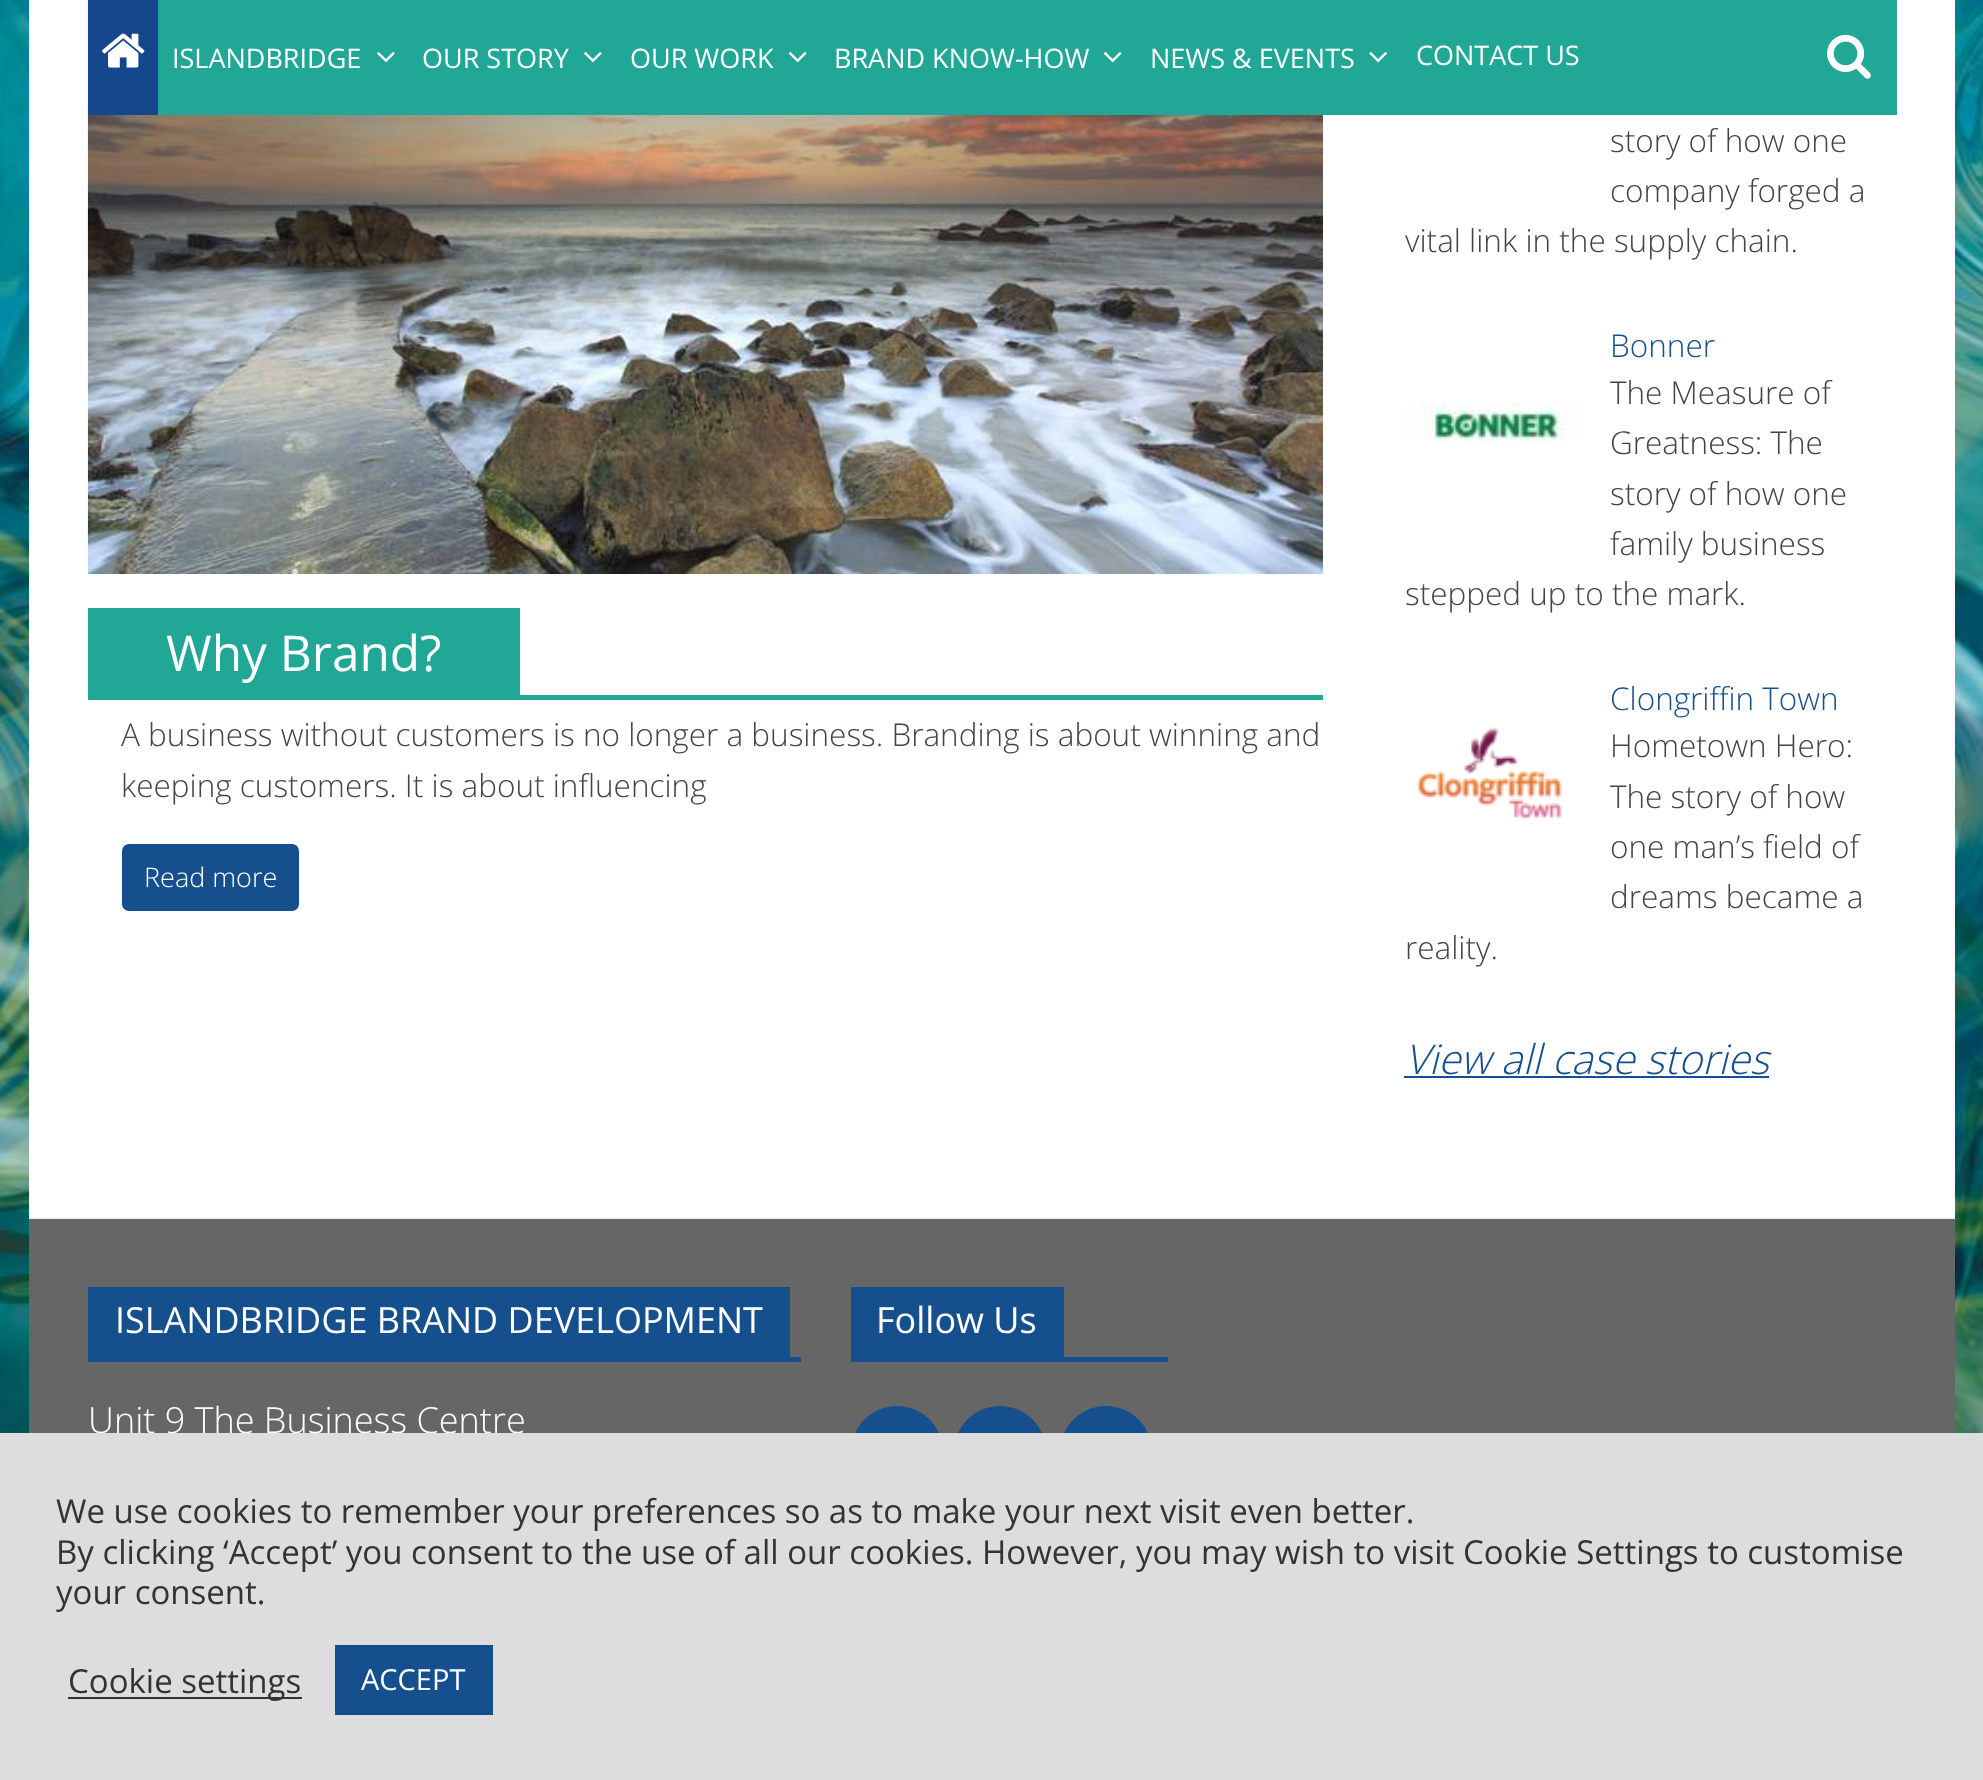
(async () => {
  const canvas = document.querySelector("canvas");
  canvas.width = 1983;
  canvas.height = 1780;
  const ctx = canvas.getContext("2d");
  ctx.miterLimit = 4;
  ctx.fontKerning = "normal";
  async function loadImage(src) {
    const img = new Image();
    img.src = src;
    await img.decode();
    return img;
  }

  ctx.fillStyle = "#ffffff";
  ctx.fillRect(0, 0, 1983, 1780);
  ctx.drawImage(await loadImage("img/1.png"), 0, 0, 1983, 1433);
  ctx.fillRect(29, 0, 1926, 1217);
  ctx.drawImage(await loadImage("img/7.png"), 87, 0, 1236, 574);
  ctx.fillStyle = "#20a795";
  ctx.fillRect(158, 0, 1739, 115);
  ctx.fillStyle = "#15478d";
  ctx.fillRect(88, 0, 70, 115);
  ctx.drawImage(await loadImage("img/2.png"), 102, 33, 43, 35);
  ctx.drawImage(await loadImage("img/3.png"), 377, 52, 18, 11);
  ctx.drawImage(await loadImage("img/3.png"), 584, 52, 18, 11);
  ctx.drawImage(await loadImage("img/4.png"), 788, 52, 19, 11);
  ctx.drawImage(await loadImage("img/4.png"), 1103, 52, 19, 11);
  ctx.drawImage(await loadImage("img/5.png"), 1369, 52, 18, 11);
  ctx.drawImage(await loadImage("img/6.png"), 1827, 34, 44, 45);
  ctx.fillStyle = "#20a795";
  ctx.fillRect(88, 695, 1235, 5);
  ctx.fillRect(88, 608, 432, 87);
  ctx.fillStyle = "#154f8d";
  ctx.beginPath();
  ctx.roundRect(122, 844, 177, 67, 7);
  ctx.fill();
  ctx.drawImage(await loadImage("img/8.png"), 1404, 402, 180, 40);
  ctx.drawImage(await loadImage("img/9.png"), 1417, 727, 146, 93);
  for (const [x, y, w, h, color] of [
    [1404, 1076, 365, 2, "#154f8d"],
    [29, 1219, 1926, 214, "#666666"],
    [29, 1217, 1926, 2, "#f2f2f2"],
    [88, 1357, 713, 5, "#154f8d"],
    [88, 1287, 702, 70, "#154f8d"],
    [851, 1357, 317, 5, "#154f8d"],
    [851, 1287, 213, 70, "#154f8d"],
  ]) {
    ctx.fillStyle = color;
    ctx.fillRect(x, y, w, h);
  }
  ctx.beginPath();
  ctx.roundRect(851, 1406, 92, 93, 46);
  ctx.fill();
  ctx.beginPath();
  ctx.roundRect(954, 1406, 92, 93, 46);
  ctx.fill();
  ctx.beginPath();
  ctx.roundRect(1060, 1406, 92, 93, 46);
  ctx.fill();
  ctx.font = "27px Open Sans";
  ctx.fillStyle = "#ffffff";
  for (const [text, x, y] of [
    ["ISLANDBRIDGE", 172, 68],
    ["OUR STORY", 422, 68],
    ["OUR WORK", 630, 68],
    ["BRAND KNOW-HOW", 834, 68],
    ["NEWS & EVENTS", 1150, 68],
    ["CONTACT US", 1416, 65],
  ]) {
    ctx.fillText(text, x, y);
  }
  ctx.font = "49.5px Open Sans";
  ctx.fillText("Why Brand?", 166, 671);
  ctx.font = "300 31.5px Open Sans";
  ctx.fillStyle = "#444444";
  ctx.fillText("A business without customers is no longer a business. Branding is about winning and", 121, 746);
  ctx.fillText("keeping customers. It is about influencing", 121, 797);
  ctx.font = "300 27px Open Sans";
  ctx.fillStyle = "#ffffff";
  ctx.fillText("Read more", 144, 887);
  ctx.font = "300 31.5px Open Sans";
  ctx.fillStyle = "#444444";
  for (const [text, x, y] of [
    ["story of how one", 1610, 152],
    ["company forged a", 1610, 202],
    ["vital link in the supply chain.", 1405, 252],
  ]) {
    ctx.fillText(text, x, y);
  }
  ctx.fillStyle = "#154f8d";
  ctx.fillText("Bonner", 1610, 357);
  ctx.fillStyle = "#444444";
  for (const [text, x, y] of [
    ["The Measure of", 1610, 404],
    ["Greatness: The", 1610, 454],
    ["story of how one", 1610, 505],
    ["family business", 1610, 555],
    ["stepped up to the mark.", 1405, 605],
  ]) {
    ctx.fillText(text, x, y);
  }
  ctx.fillStyle = "#154f8d";
  ctx.fillText("Clongriffin Town", 1610, 710);
  ctx.fillStyle = "#444444";
  for (const [text, x, y] of [
    ["Hometown Hero:", 1610, 757],
    ["The story of how", 1610, 808],
    ["one man’s field of", 1610, 858],
    ["dreams became a", 1610, 908],
    ["reality.", 1405, 959],
  ]) {
    ctx.fillText(text, x, y);
  }
  ctx.font = "italic 300 41px Open Sans";
  ctx.fillStyle = "#154f8d";
  ctx.fillText("View all case stories", 1405, 1074);
  ctx.font = "36px Open Sans";
  ctx.fillStyle = "#ffffff";
  ctx.fillText("ISLANDBRIDGE BRAND DEVELOPMENT", 115, 1333);
  ctx.font = "300 36px Open Sans";
  ctx.fillText("Unit 9 The Business Centre", 88, 1433);
  ctx.font = "36px Open Sans";
  ctx.fillText("Follow Us", 876, 1333);
  ctx.fillStyle = "#dddddd";
  ctx.fillRect(0, 1433, 1983, 347);
  ctx.font = "33px Open Sans";
  ctx.fillStyle = "#333333";
  for (const [text, x, y] of [
    ["We use cookies to remember your preferences so as to make your next visit even better.", 56, 1523],
    ["By clicking ‘Accept’ you consent to the use of all our cookies. However, you may wish to visit Cookie Settings to customise", 56, 1564],
    ["your consent.", 56, 1604],
  ]) {
    ctx.fillText(text, x, y);
  }
  ctx.fillRect(68, 1697, 234, 2);
  ctx.fillText("Cookie settings", 68, 1693);
  ctx.fillStyle = "#154f8d";
  ctx.fillRect(335, 1645, 158, 70);
  ctx.font = "29px Open Sans";
  ctx.fillStyle = "#ffffff";
  ctx.fillText("ACCEPT", 361, 1690);
})();
